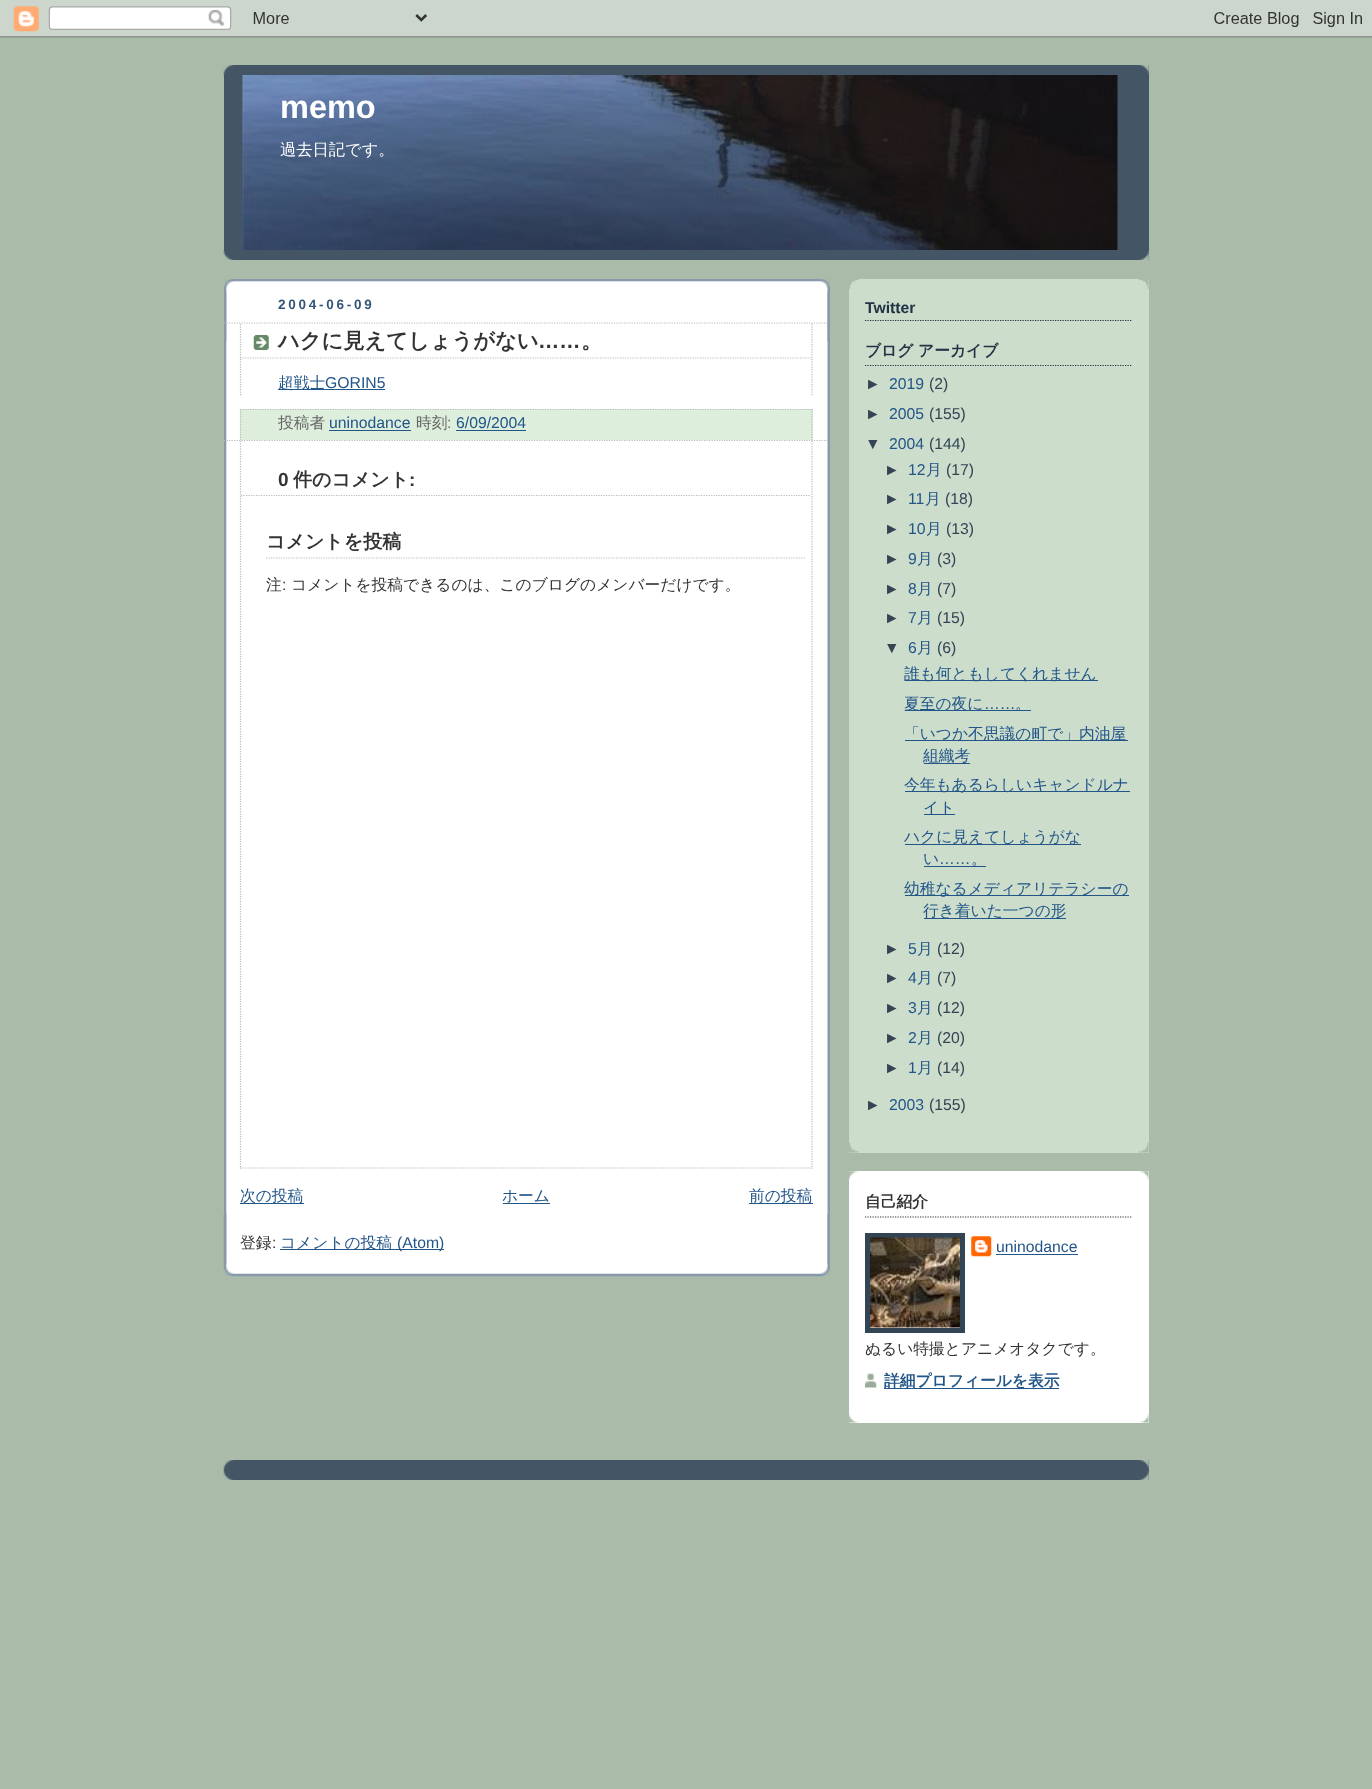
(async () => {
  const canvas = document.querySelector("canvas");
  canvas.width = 1372;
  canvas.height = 1789;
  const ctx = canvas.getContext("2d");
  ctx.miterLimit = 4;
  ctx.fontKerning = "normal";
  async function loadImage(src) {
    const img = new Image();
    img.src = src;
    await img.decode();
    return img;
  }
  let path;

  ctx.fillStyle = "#aabbaa";
  ctx.fillRect(0, 0, 1372, 1789);
  ctx.drawImage(await loadImage("img/1.png"), 0, 0, 1372, 38);
  ctx.fillStyle = "#445566";
  ctx.fillRect(224, 65, 925, 195);
  ctx.drawImage(await loadImage("img/2.png"), 223, 65, 926, 10);
  ctx.drawImage(await loadImage("img/3.png"), 223, 250, 926, 10);
  ctx.drawImage(await loadImage("img/4.png"), 242, 75, 876, 175);
  ctx.fillStyle = "#ffffff";
  ctx.fillRect(226, 281, 602, 993);
  ctx.drawImage(await loadImage("img/5.png"), 223, 1213, 607, 64);
  ctx.drawImage(await loadImage("img/6.png"), 224, 279, 606, 63);
  ctx.drawImage(await loadImage("img/7.png"), 224, 291, 606, 973);
  path = new Path2D("M224 323H829");
  ctx.strokeStyle = "#bbbbbb";
  ctx.lineWidth = 1.2;
  ctx.setLineDash([1.25, 1.25]);
  ctx.stroke(path);
  path = new Path2D("M224 440.5H829");
  ctx.stroke(path);
  ctx.drawImage(await loadImage("img/8.png"), 253, 335, 16, 15);
  path = new Path2D("M812 324V359");
  ctx.stroke(path);
  path = new Path2D("M240 358H812.5");
  ctx.stroke(path);
  path = new Path2D("M240.5 324V359");
  ctx.stroke(path);
  path = new Path2D("M812 359V396");
  ctx.stroke(path);
  path = new Path2D("M240.5 359V396");
  ctx.stroke(path);
  ctx.fillStyle = "#225588";
  ctx.fillRect(278, 389, 107, 1);
  ctx.fillStyle = "#ddeedd";
  ctx.fillRect(240, 409, 573, 31);
  path = new Path2D("M240 409.5H812.5");
  ctx.stroke(path);
  path = new Path2D("M812 409V440");
  ctx.stroke(path);
  path = new Path2D("M240.5 409V440");
  ctx.stroke(path);
  ctx.fillStyle = "#225588";
  ctx.fillRect(329, 430, 82, 1);
  path = new Path2D("M456 430.5H526");
  ctx.strokeStyle = "#225588";
  ctx.stroke(path);
  ctx.fillRect(456, 430, 70, 1);
  path = new Path2D("M812 441V1169");
  ctx.strokeStyle = "#bbbbbb";
  ctx.stroke(path);
  path = new Path2D("M240 1168H812.5");
  ctx.stroke(path);
  path = new Path2D("M240.5 441V1169");
  ctx.stroke(path);
  path = new Path2D("M241 495.5H811");
  ctx.stroke(path);
  path = new Path2D("M266 558H805");
  ctx.stroke(path);
  for (const [x, y, w, h, color] of [
    [240, 1203, 64, 1, "#225588"],
    [503, 1203, 47, 1, "#225588"],
    [749, 1203, 64, 1, "#225588"],
    [280, 1249, 164, 1, "#225588"],
    [849, 279, 300, 874, "#ccddcc"],
  ]) {
    ctx.fillStyle = color;
    ctx.fillRect(x, y, w, h);
  }
  ctx.drawImage(await loadImage("img/9.png"), 849, 1142, 300, 11);
  ctx.drawImage(await loadImage("img/10.png"), 849, 279, 300, 10);
  path = new Path2D("M865 320.5H1132.5");
  ctx.strokeStyle = "#223344";
  ctx.stroke(path);
  path = new Path2D("M865 365.5H1132.5");
  ctx.stroke(path);
  for (const [x, y, w, h, color] of [
    [905, 680, 193, 1, "#225588"],
    [905, 710, 126, 1, "#225588"],
    [905, 740, 223, 1, "#225588"],
    [924, 763, 46, 1, "#225588"],
    [905, 791, 225, 1, "#225588"],
    [924, 814, 31, 1, "#225588"],
    [905, 844, 176, 1, "#225588"],
    [924, 866, 62, 1, "#225588"],
    [905, 895, 224, 1, "#225588"],
    [924, 918, 142, 1, "#225588"],
    [849, 1171, 300, 252, "#ffffff"],
  ]) {
    ctx.fillStyle = color;
    ctx.fillRect(x, y, w, h);
  }
  ctx.drawImage(await loadImage("img/11.png"), 848, 1171, 301, 10);
  ctx.drawImage(await loadImage("img/12.png"), 848, 1413, 301, 10);
  path = new Path2D("M865 1217H1132.5");
  ctx.strokeStyle = "#333333";
  ctx.stroke(path);
  ctx.strokeStyle = "#334455";
  ctx.lineWidth = 5;
  ctx.setLineDash([]);
  ctx.strokeRect(867.5, 1235.5, 95, 95);
  ctx.drawImage(await loadImage("img/13.png"), 870, 1237, 90, 91);
  ctx.drawImage(await loadImage("img/14.png"), 971, 1236, 21, 21);
  ctx.fillStyle = "#225588";
  ctx.fillRect(996, 1254, 82, 1);
  ctx.drawImage(await loadImage("img/15.png"), 865, 1373, 12, 15);
  ctx.fillRect(884, 1388, 175, 1);
  ctx.fillStyle = "#445566";
  ctx.fillRect(224, 1460, 925, 20);
  ctx.drawImage(await loadImage("img/2.png"), 223, 1460, 926, 10);
  ctx.drawImage(await loadImage("img/3.png"), 223, 1470, 926, 10);
  ctx.font = "bold 32.5px Liberation Sans";
  ctx.fillStyle = "#ffffff";
  ctx.fillText("memo", 280, 118);
  ctx.font = "500 16.25px WenQuanYi Zen Hei";
  ctx.fillText("過去日記です。", 280, 155);
  ctx.letterSpacing = "2.75px";
  ctx.font = "bold 13.5px Liberation Sans";
  ctx.fillStyle = "#335577";
  ctx.fillText("2004-06-09", 278, 309);
  ctx.letterSpacing = "0px";
  ctx.font = "bold 21.25px WenQuanYi Zen Hei";
  ctx.fillStyle = "#333333";
  ctx.fillText("ハクに見えてしょうがない", 278, 348);
  ctx.font = "bold 21.25px Liberation Sans";
  ctx.fillText("……", 538, 348);
  ctx.font = "bold 21.25px WenQuanYi Zen Hei";
  ctx.fillText("。", 581, 348);
  ctx.font = "500 15.75px WenQuanYi Zen Hei";
  ctx.fillStyle = "#225588";
  ctx.fillText("超戦士", 278, 388);
  ctx.font = "15.75px Liberation Sans";
  ctx.fillText("GORIN5", 325, 388);
  ctx.font = "500 15.75px WenQuanYi Zen Hei";
  ctx.fillStyle = "#666666";
  ctx.fillText("投稿者", 278, 428);
  ctx.font = "15.75px Liberation Sans";
  ctx.fillStyle = "#225588";
  ctx.fillText("uninodance", 329, 428);
  ctx.font = "500 15.75px WenQuanYi Zen Hei";
  ctx.fillStyle = "#666666";
  ctx.fillText("時刻", 416, 428);
  ctx.font = "15.75px Liberation Sans";
  ctx.fillText(":", 447, 428);
  ctx.fillStyle = "#225588";
  ctx.fillText("6/09/2004", 456, 428);
  ctx.font = "bold 19px Liberation Sans";
  ctx.fillStyle = "#333333";
  ctx.fillText("0", 278, 486);
  ctx.font = "bold 19px WenQuanYi Zen Hei";
  ctx.fillText("件のコメント", 293, 486);
  ctx.font = "bold 19px Liberation Sans";
  ctx.fillText(":", 409, 486);
  ctx.font = "bold 19px WenQuanYi Zen Hei";
  ctx.fillText("コメントを投稿", 266, 548);
  ctx.font = "500 15.75px WenQuanYi Zen Hei";
  ctx.fillText("注", 266, 590);
  ctx.font = "15.75px Liberation Sans";
  ctx.fillText(":", 282, 590);
  ctx.font = "500 15.75px WenQuanYi Zen Hei";
  ctx.fillText("コメントを投稿できるのは、このブログのメンバーだけです。", 291, 590);
  ctx.fillStyle = "#225588";
  for (const [text, x, y] of [
    ["次の投稿", 240, 1201],
    ["ホーム", 502, 1201],
    ["前の投稿", 749, 1201],
  ]) {
    ctx.fillText(text, x, y);
  }
  ctx.fillStyle = "#333333";
  ctx.fillText("登録", 240, 1248);
  ctx.font = "15.75px Liberation Sans";
  ctx.fillText(":", 272, 1248);
  ctx.font = "500 15.75px WenQuanYi Zen Hei";
  ctx.fillStyle = "#225588";
  ctx.fillText("コメントの投稿", 280, 1248);
  ctx.font = "15.75px Liberation Sans";
  ctx.fillText("(Atom)", 397, 1248);
  ctx.font = "bold 15.75px Liberation Sans";
  ctx.fillStyle = "#223344";
  ctx.fillText("Twitter", 865, 313);
  ctx.font = "bold 15.75px WenQuanYi Zen Hei";
  ctx.fillText("ブログ アーカイブ", 865, 356);
  ctx.font = "15.75px Liberation Sans";
  ctx.fillStyle = "#334455";
  ctx.fillText("►", 865, 389);
  ctx.fillStyle = "#225588";
  ctx.fillText("2019", 889, 389);
  ctx.fillStyle = "#334455";
  ctx.fillText("(2)", 929, 389);
  ctx.fillText("►", 865, 419);
  ctx.fillStyle = "#225588";
  ctx.fillText("2005", 889, 419);
  ctx.fillStyle = "#334455";
  ctx.fillText("(155)", 929, 419);
  ctx.fillText("▼", 865, 449);
  ctx.fillStyle = "#225588";
  ctx.fillText("2004", 889, 449);
  ctx.fillStyle = "#334455";
  ctx.fillText("(144)", 929, 449);
  ctx.fillText("►", 884, 475);
  ctx.fillStyle = "#225588";
  ctx.fillText("12", 908, 475);
  ctx.font = "500 15.75px WenQuanYi Zen Hei";
  ctx.fillText("月", 926, 475);
  ctx.font = "15.75px Liberation Sans";
  ctx.fillStyle = "#334455";
  ctx.fillText("(17)", 946, 475);
  ctx.fillText("►", 884, 504);
  ctx.fillStyle = "#225588";
  ctx.fillText("11", 908, 504);
  ctx.font = "500 15.75px WenQuanYi Zen Hei";
  ctx.fillText("月", 925, 504);
  ctx.font = "15.75px Liberation Sans";
  ctx.fillStyle = "#334455";
  ctx.fillText("(18)", 945, 504);
  ctx.fillText("►", 884, 534);
  ctx.fillStyle = "#225588";
  ctx.fillText("10", 908, 534);
  ctx.font = "500 15.75px WenQuanYi Zen Hei";
  ctx.fillText("月", 926, 534);
  ctx.font = "15.75px Liberation Sans";
  ctx.fillStyle = "#334455";
  ctx.fillText("(13)", 946, 534);
  ctx.fillText("►", 884, 564);
  ctx.fillStyle = "#225588";
  ctx.fillText("9", 908, 564);
  ctx.font = "500 15.75px WenQuanYi Zen Hei";
  ctx.fillText("月", 917, 564);
  ctx.font = "15.75px Liberation Sans";
  ctx.fillStyle = "#334455";
  ctx.fillText("(3)", 937, 564);
  ctx.fillText("►", 884, 594);
  ctx.fillStyle = "#225588";
  ctx.fillText("8", 908, 594);
  ctx.font = "500 15.75px WenQuanYi Zen Hei";
  ctx.fillText("月", 917, 594);
  ctx.font = "15.75px Liberation Sans";
  ctx.fillStyle = "#334455";
  ctx.fillText("(7)", 937, 594);
  ctx.fillText("►", 884, 623);
  ctx.fillStyle = "#225588";
  ctx.fillText("7", 908, 623);
  ctx.font = "500 15.75px WenQuanYi Zen Hei";
  ctx.fillText("月", 917, 623);
  ctx.font = "15.75px Liberation Sans";
  ctx.fillStyle = "#334455";
  ctx.fillText("(15)", 937, 623);
  ctx.fillText("▼", 884, 653);
  ctx.fillStyle = "#225588";
  ctx.fillText("6", 908, 653);
  ctx.font = "500 15.75px WenQuanYi Zen Hei";
  ctx.fillText("月", 917, 653);
  ctx.font = "15.75px Liberation Sans";
  ctx.fillStyle = "#334455";
  ctx.fillText("(6)", 937, 653);
  ctx.font = "500 15.75px WenQuanYi Zen Hei";
  ctx.fillStyle = "#225588";
  ctx.fillText("誰も何ともしてくれません", 904, 679);
  ctx.fillText("夏至の夜に", 904, 709);
  ctx.font = "15.75px Liberation Sans";
  ctx.fillText("……", 984, 709);
  ctx.font = "500 15.75px WenQuanYi Zen Hei";
  for (const [text, x, y] of [
    ["。", 1015, 709],
    ["「いつか不思議の町で」内油屋", 904, 739],
    ["組織考", 923, 761],
    ["今年もあるらしいキャンドルナ", 904, 790],
    ["イト", 923, 813],
    ["ハクに見えてしょうがな", 904, 842],
    ["い", 923, 864],
  ]) {
    ctx.fillText(text, x, y);
  }
  ctx.font = "15.75px Liberation Sans";
  ctx.fillText("……", 939, 864);
  ctx.font = "500 15.75px WenQuanYi Zen Hei";
  for (const [text, x, y] of [
    ["。", 971, 864],
    ["幼稚なるメディアリテラシーの", 904, 894],
    ["行き着いた一つの形", 923, 916],
  ]) {
    ctx.fillText(text, x, y);
  }
  ctx.font = "15.75px Liberation Sans";
  ctx.fillStyle = "#334455";
  ctx.fillText("►", 884, 954);
  ctx.fillStyle = "#225588";
  ctx.fillText("5", 908, 954);
  ctx.font = "500 15.75px WenQuanYi Zen Hei";
  ctx.fillText("月", 917, 954);
  ctx.font = "15.75px Liberation Sans";
  ctx.fillStyle = "#334455";
  ctx.fillText("(12)", 937, 954);
  ctx.fillText("►", 884, 983);
  ctx.fillStyle = "#225588";
  ctx.fillText("4", 908, 983);
  ctx.font = "500 15.75px WenQuanYi Zen Hei";
  ctx.fillText("月", 917, 983);
  ctx.font = "15.75px Liberation Sans";
  ctx.fillStyle = "#334455";
  ctx.fillText("(7)", 937, 983);
  ctx.fillText("►", 884, 1013);
  ctx.fillStyle = "#225588";
  ctx.fillText("3", 908, 1013);
  ctx.font = "500 15.75px WenQuanYi Zen Hei";
  ctx.fillText("月", 917, 1013);
  ctx.font = "15.75px Liberation Sans";
  ctx.fillStyle = "#334455";
  ctx.fillText("(12)", 937, 1013);
  ctx.fillText("►", 884, 1043);
  ctx.fillStyle = "#225588";
  ctx.fillText("2", 908, 1043);
  ctx.font = "500 15.75px WenQuanYi Zen Hei";
  ctx.fillText("月", 917, 1043);
  ctx.font = "15.75px Liberation Sans";
  ctx.fillStyle = "#334455";
  ctx.fillText("(20)", 937, 1043);
  ctx.fillText("►", 884, 1073);
  ctx.fillStyle = "#225588";
  ctx.fillText("1", 908, 1073);
  ctx.font = "500 15.75px WenQuanYi Zen Hei";
  ctx.fillText("月", 917, 1073);
  ctx.font = "15.75px Liberation Sans";
  ctx.fillStyle = "#334455";
  ctx.fillText("(14)", 937, 1073);
  ctx.fillText("►", 865, 1110);
  ctx.fillStyle = "#225588";
  ctx.fillText("2003", 889, 1110);
  ctx.fillStyle = "#334455";
  ctx.fillText("(155)", 929, 1110);
  ctx.font = "bold 15.75px WenQuanYi Zen Hei";
  ctx.fillStyle = "#333333";
  ctx.fillText("自己紹介", 865, 1207);
  ctx.font = "15.75px Liberation Sans";
  ctx.fillStyle = "#225588";
  ctx.fillText("uninodance", 996, 1252);
  ctx.font = "500 15.75px WenQuanYi Zen Hei";
  ctx.fillStyle = "#333333";
  ctx.fillText("ぬるい特撮とアニメオタクです。", 865, 1354);
  ctx.font = "bold 15.75px WenQuanYi Zen Hei";
  ctx.fillStyle = "#225588";
  ctx.fillText("詳細プロフィールを表示", 884, 1386);
})();
